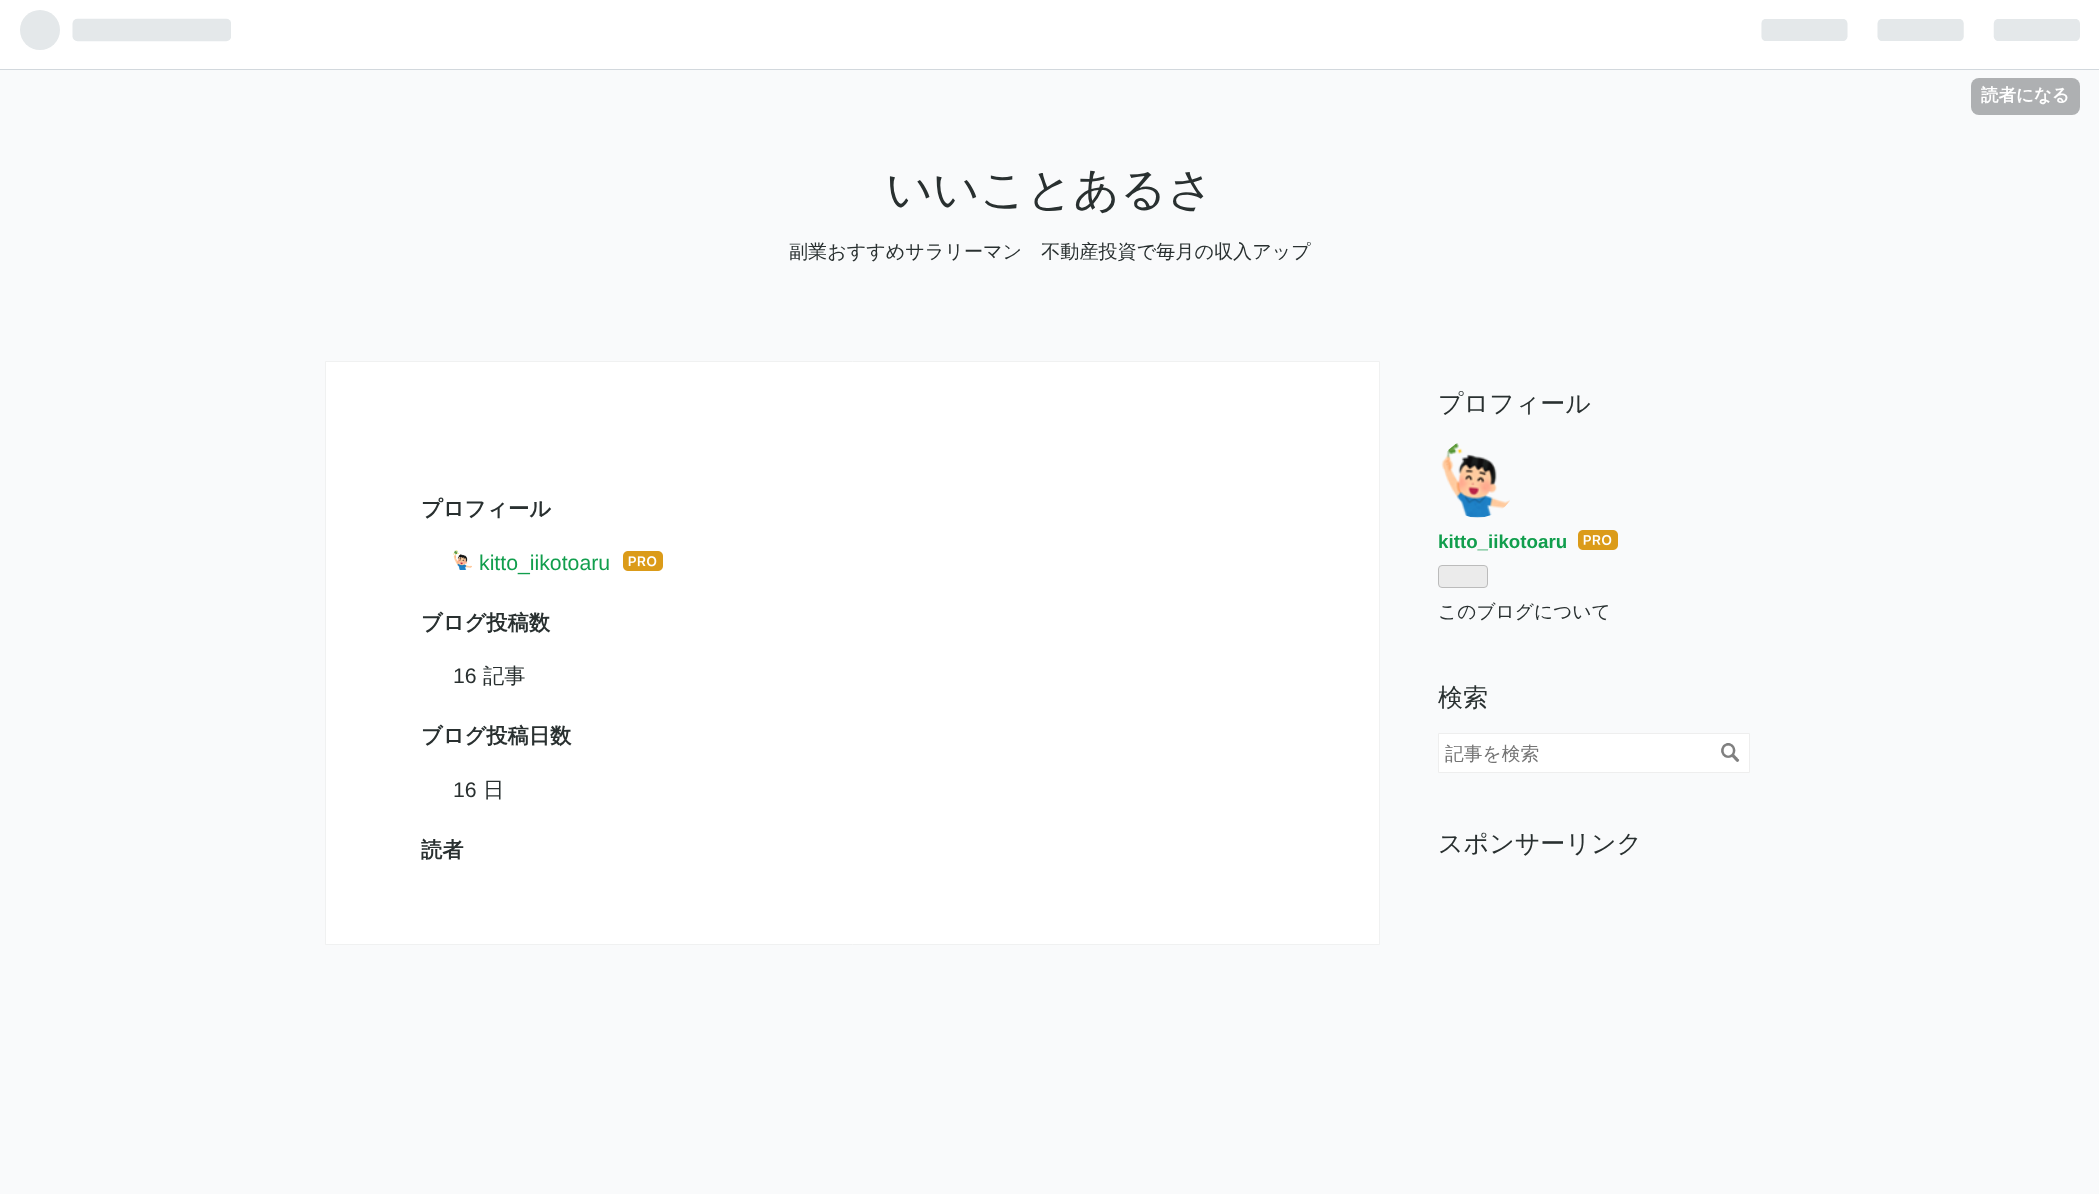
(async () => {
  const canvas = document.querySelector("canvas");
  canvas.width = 2099;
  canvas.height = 1194;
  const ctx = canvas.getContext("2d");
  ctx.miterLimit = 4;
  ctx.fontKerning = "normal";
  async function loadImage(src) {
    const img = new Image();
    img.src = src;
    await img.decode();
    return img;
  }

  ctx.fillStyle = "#f9fafb";
  ctx.fillRect(0, 0, 2099, 1194);
  ctx.fillStyle = "#ffffff";
  ctx.fillRect(0, 0, 2099, 69);
  ctx.fillStyle = "#d2d8dd";
  ctx.fillRect(0, 69, 2099, 1);
  ctx.drawImage(await loadImage("img/1.png"), 20, 10, 211, 40);
  ctx.drawImage(await loadImage("img/2.png"), 1761, 19, 319, 22);
  ctx.fillStyle = "#aeb0b2";
  ctx.beginPath();
  ctx.roundRect(1971, 78, 109, 37, 8);
  ctx.fill();
  ctx.fillStyle = "#ffffff";
  ctx.beginPath();
  ctx.rect(325.5, 361.5, 1054, 583);
  ctx.fill();
  ctx.strokeStyle = "#f0f1f1";
  ctx.stroke();
  ctx.drawImage(await loadImage("img/3.png"), 453, 550, 19, 20);
  ctx.drawImage(await loadImage("img/4.png"), 623, 551, 40, 20);
  ctx.drawImage(await loadImage("img/5.png"), 1441, 443, 69, 75);
  ctx.drawImage(await loadImage("img/6.png"), 1578, 530, 40, 20);
  ctx.fillStyle = "#ebebeb";
  ctx.beginPath();
  ctx.roundRect(1438.5, 565.5, 49, 22, 3.5);
  ctx.fill();
  ctx.strokeStyle = "#bbbbbb";
  ctx.stroke();
  ctx.fillStyle = "#ffffff";
  ctx.beginPath();
  ctx.rect(1438.5, 733.5, 311, 39);
  ctx.fill();
  ctx.strokeStyle = "#eeeeee";
  ctx.stroke();
  ctx.drawImage(await loadImage("img/7.png"), 1721, 743, 19, 19);
  ctx.font = "bold 17.5px WenQuanYi Zen Hei";
  ctx.fillText("読者になる", 1981, 101);
  ctx.font = "500 45.75px WenQuanYi Zen Hei";
  ctx.fillStyle = "#293030";
  ctx.fillText("いいことあるさ", 886, 205);
  ctx.font = "500 19.1px WenQuanYi Zen Hei";
  ctx.fillText("副業おすすめサラリーマン　不動産投資で毎月の収入アップ", 789, 258);
  ctx.font = "bold 21.25px WenQuanYi Zen Hei";
  ctx.fillText("プロフィール", 421, 516);
  ctx.font = "21.25px Liberation Sans";
  ctx.fillStyle = "#119e4d";
  ctx.fillText("kitto_iikotoaru", 479, 570);
  ctx.font = "bold 21.25px WenQuanYi Zen Hei";
  ctx.fillStyle = "#293030";
  ctx.fillText("ブログ投稿数", 421, 630);
  ctx.font = "21.25px Liberation Sans";
  ctx.fillText("16", 453, 683);
  ctx.font = "500 21.25px WenQuanYi Zen Hei";
  ctx.fillText("記事", 483, 683);
  ctx.font = "bold 21.25px WenQuanYi Zen Hei";
  ctx.fillText("ブログ投稿日数", 421, 743);
  ctx.font = "21.25px Liberation Sans";
  ctx.fillText("16", 453, 797);
  ctx.font = "500 21.25px WenQuanYi Zen Hei";
  ctx.fillText("日", 483, 797);
  ctx.font = "bold 21.25px WenQuanYi Zen Hei";
  ctx.fillText("読者", 421, 857);
  ctx.font = "500 25px WenQuanYi Zen Hei";
  ctx.fillText("プロフィール", 1438, 412);
  ctx.font = "bold 18.75px Liberation Sans";
  ctx.fillStyle = "#119e4d";
  ctx.fillText("kitto_iikotoaru", 1438, 548);
  ctx.font = "500 18.75px WenQuanYi Zen Hei";
  ctx.fillStyle = "#293030";
  ctx.fillText("このブログについて", 1438, 618);
  ctx.font = "500 25px WenQuanYi Zen Hei";
  ctx.fillText("検索", 1438, 706);
  ctx.font = "500 18.75px WenQuanYi Zen Hei";
  ctx.fillStyle = "#757575";
  ctx.fillText("記事を検索", 1445, 760);
  ctx.font = "500 25px WenQuanYi Zen Hei";
  ctx.fillStyle = "#293030";
  ctx.fillText("スポンサーリンク", 1438, 852);
})();
